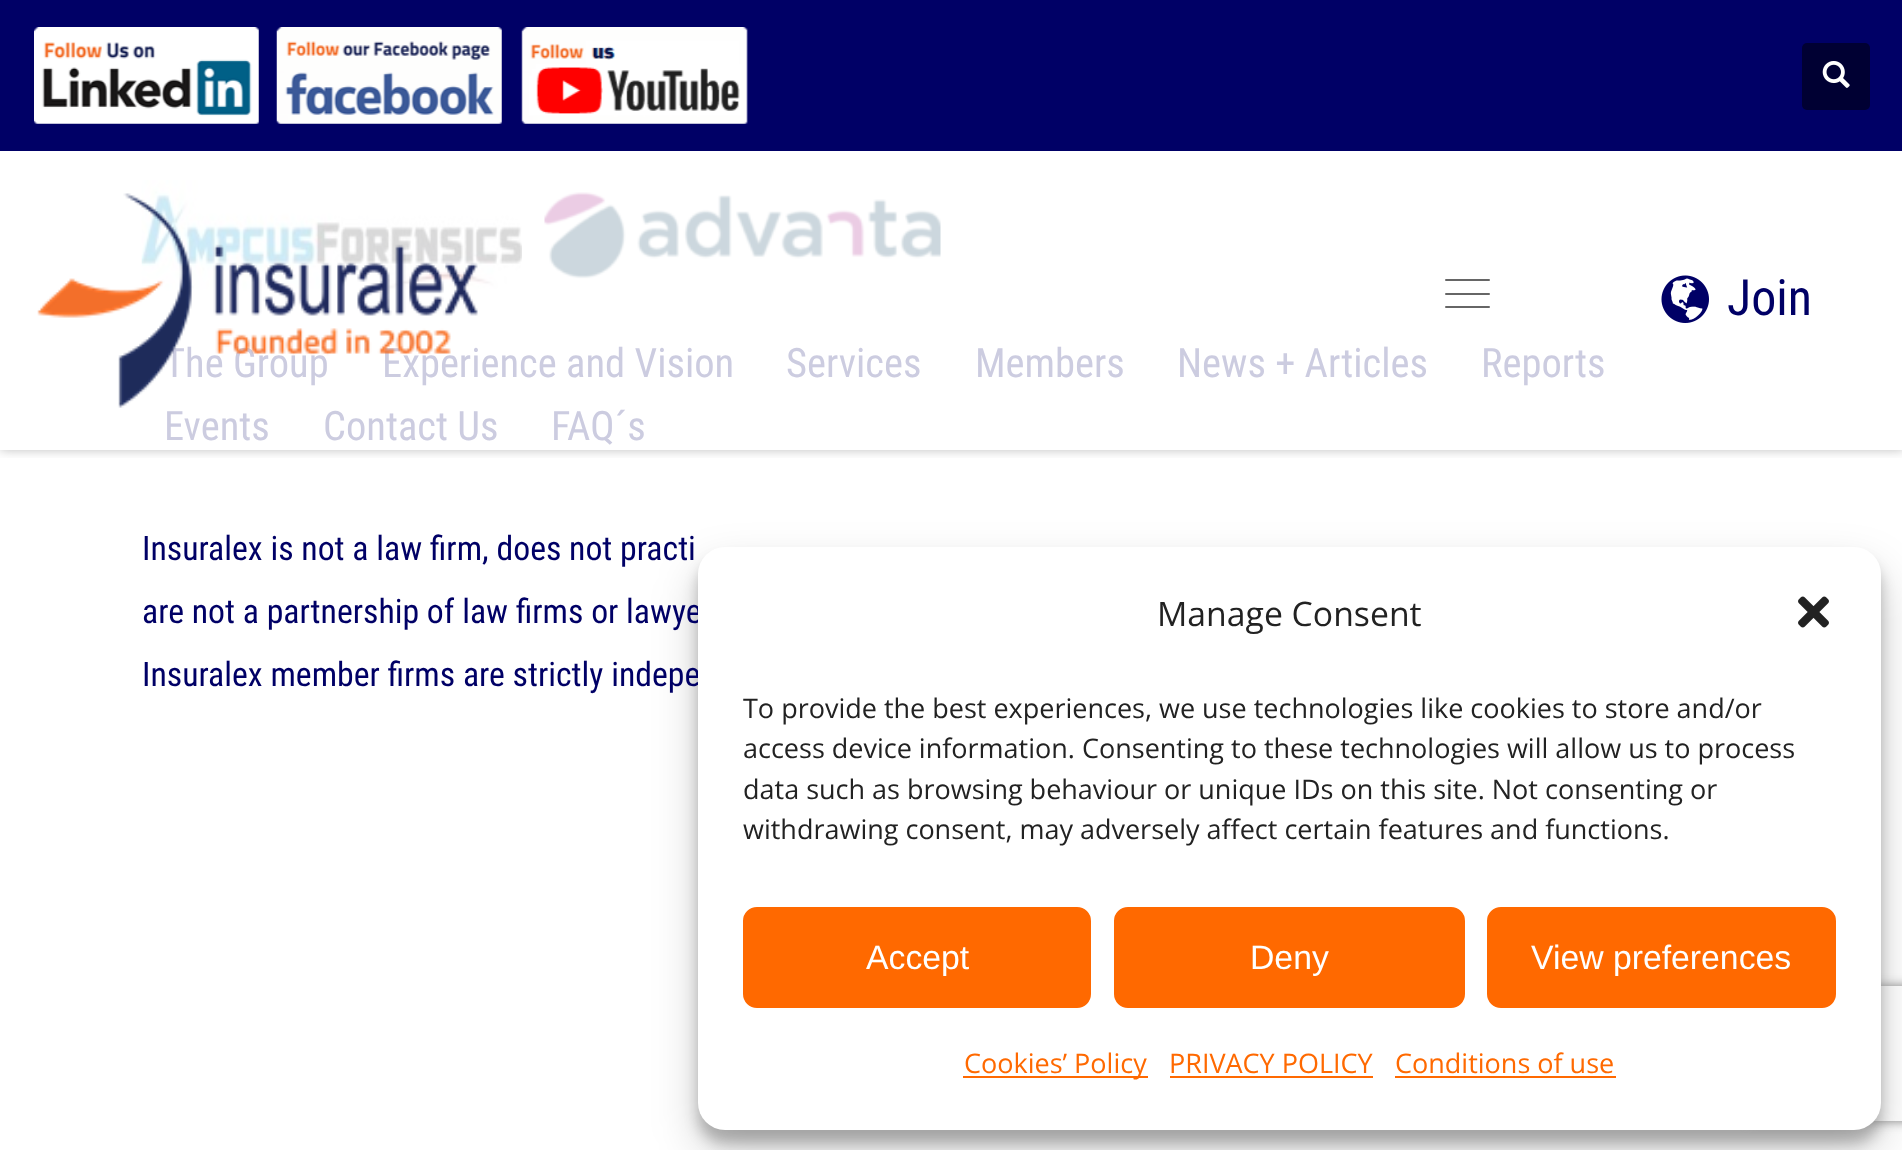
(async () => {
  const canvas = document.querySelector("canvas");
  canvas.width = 1902;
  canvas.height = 1150;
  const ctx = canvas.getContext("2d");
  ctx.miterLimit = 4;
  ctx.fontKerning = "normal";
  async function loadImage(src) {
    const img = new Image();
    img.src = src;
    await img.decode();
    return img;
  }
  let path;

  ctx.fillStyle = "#ffffff";
  ctx.fillRect(0, 0, 1902, 1150);
  ctx.drawImage(await loadImage("img/7.png"), 141, 180, 381, 113);
  ctx.drawImage(await loadImage("img/8.png"), 544, 192, 397, 87);
  ctx.save();
  ctx.beginPath();
  ctx.rect(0, 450, 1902, 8);
  ctx.clip();
  ctx.fillStyle = "rgba(0, 0, 0, 0.25)";
  ctx.filter = "blur(5.5px)";
  ctx.beginPath();
  ctx.rect(0, 0, 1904, 450);
  ctx.fill();
  ctx.filter = "none";
  ctx.restore();
  ctx.fillStyle = "#000066";
  ctx.fillRect(0, 0, 1902, 151);
  ctx.drawImage(await loadImage("img/1.png"), 34, 27, 225, 97);
  ctx.drawImage(await loadImage("img/2.png"), 276, 27, 226, 97);
  ctx.drawImage(await loadImage("img/3.png"), 521, 27, 227, 97);
  ctx.fillStyle = "#000033";
  ctx.beginPath();
  ctx.roundRect(1802, 43, 68, 67, 5);
  ctx.fill();
  ctx.drawImage(await loadImage("img/4.png"), 1822, 61, 28, 27);
  ctx.fillStyle = "#666666";
  ctx.beginPath();
  ctx.roundRect(1445, 279, 45, 2, 1);
  ctx.fill();
  ctx.beginPath();
  ctx.roundRect(1445, 293, 45, 2, 1);
  ctx.fill();
  ctx.beginPath();
  ctx.roundRect(1445, 306, 45, 2, 1);
  ctx.fill();
  ctx.drawImage(await loadImage("img/6.png"), 1661, 275, 48, 48);
  ctx.fillStyle = "rgba(0, 0, 0, 0.23)";
  ctx.filter = "blur(7px)";
  ctx.beginPath();
  ctx.roundRect(698, 560, 1183, 583, 27);
  ctx.fill();
  ctx.filter = "none";
  ctx.fillStyle = "rgba(0, 0, 0, 0.19)";
  ctx.filter = "blur(22.5px)";
  ctx.beginPath();
  ctx.roundRect(698, 569, 1183, 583, 27);
  ctx.fill();
  ctx.filter = "none";
  ctx.save();
  path = new Path2D("M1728 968H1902V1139H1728ZM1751 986H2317C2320 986 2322 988 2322 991V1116C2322 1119 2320 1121 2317 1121H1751C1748 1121 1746 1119 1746 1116V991C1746 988 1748 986 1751 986Z");
  ctx.clip(path, "evenodd");
  ctx.fillStyle = "#808080";
  ctx.filter = "blur(5.5px)";
  ctx.beginPath();
  ctx.roundRect(1746, 986, 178, 135, 5);
  ctx.fill();
  ctx.filter = "none";
  ctx.restore();
  ctx.font = "50px Roboto Condensed";
  ctx.fillStyle = "#000066";
  ctx.fillText("Join", 1727, 315);
  ctx.font = "40.5px Roboto Condensed";
  ctx.fillStyle = "#cccce0";
  ctx.fillText("The Group", 164, 377);
  ctx.fillText("Experience and Vision", 382, 377);
  ctx.drawImage(await loadImage("img/5.png"), 37, 193, 441, 215);
  for (const [text, x, y] of [
    ["Services", 786, 377],
    ["Members", 975, 377],
    ["News + Articles", 1177, 377],
    ["Reports", 1481, 377],
    ["Events", 164, 440],
    ["Contact Us", 323, 440],
    ["FAQ´s", 551, 440],
  ]) {
    ctx.fillText(text, x, y);
  }
  ctx.font = "33.75px Roboto Condensed";
  ctx.fillStyle = "#000066";
  for (const [text, x, y] of [
    ["Insuralex is not a law firm, does not practi", 142, 560],
    ["are not a partnership of law firms or lawye", 142, 623],
    ["Insuralex member firms are strictly indepe", 142, 686],
  ]) {
    ctx.fillText(text, x, y);
  }
  ctx.fillStyle = "#ffffff";
  ctx.beginPath();
  ctx.roundRect(698, 547, 1183, 583, 27);
  ctx.fill();
  ctx.font = "33.75px Open Sans";
  ctx.fillStyle = "#222222";
  ctx.fillText("Manage Consent", 1157, 626);
  ctx.drawImage(await loadImage("img/9.png"), 1798, 596, 31, 32);
  ctx.save();
  ctx.beginPath();
  ctx.rect(743, 689, 1093, 173);
  ctx.clip();
  ctx.font = "27px Open Sans";
  ctx.fillText("To provide the best experiences, we use technologies like cookies to store and/or", 743, 718);
  ctx.restore();
  ctx.font = "27px Open Sans";
  for (const [text, x, y] of [
    ["access device information. Consenting to these technologies will allow us to process", 743, 758],
    ["data such as browsing behaviour or unique IDs on this site. Not consenting or", 743, 799],
    ["withdrawing consent, may adversely affect certain features and functions.", 743, 839],
  ]) {
    ctx.fillText(text, x, y);
  }
  ctx.fillStyle = "#ff6900";
  ctx.beginPath();
  ctx.roundRect(744, 908, 346, 99, 13);
  ctx.fill();
  ctx.strokeStyle = "#ff6900";
  ctx.lineWidth = 2;
  ctx.stroke();
  ctx.font = "33.75px Liberation Sans";
  ctx.fillStyle = "#ffffff";
  ctx.fillText("Accept", 866, 969);
  ctx.fillStyle = "#ff6900";
  ctx.beginPath();
  ctx.roundRect(1115, 908, 349, 99, 13);
  ctx.fill();
  ctx.stroke();
  ctx.fillStyle = "#ffffff";
  ctx.fillText("Deny", 1250, 969);
  ctx.fillStyle = "#ff6900";
  ctx.beginPath();
  ctx.roundRect(1488, 908, 347, 99, 13);
  ctx.fill();
  ctx.stroke();
  ctx.fillStyle = "#ffffff";
  ctx.fillText("View preferences", 1531, 969);
  ctx.fillStyle = "#ff6900";
  ctx.fillRect(963, 1076, 185, 2);
  ctx.font = "27px Open Sans";
  ctx.fillText("Cookies’ Policy", 964, 1073);
  ctx.fillText("PRIVACY POLICY", 1169, 1073);
  ctx.fillRect(1170, 1076, 203, 2);
  ctx.fillText("Conditions of use", 1395, 1073);
  ctx.fillRect(1395, 1076, 221, 2);
})();
